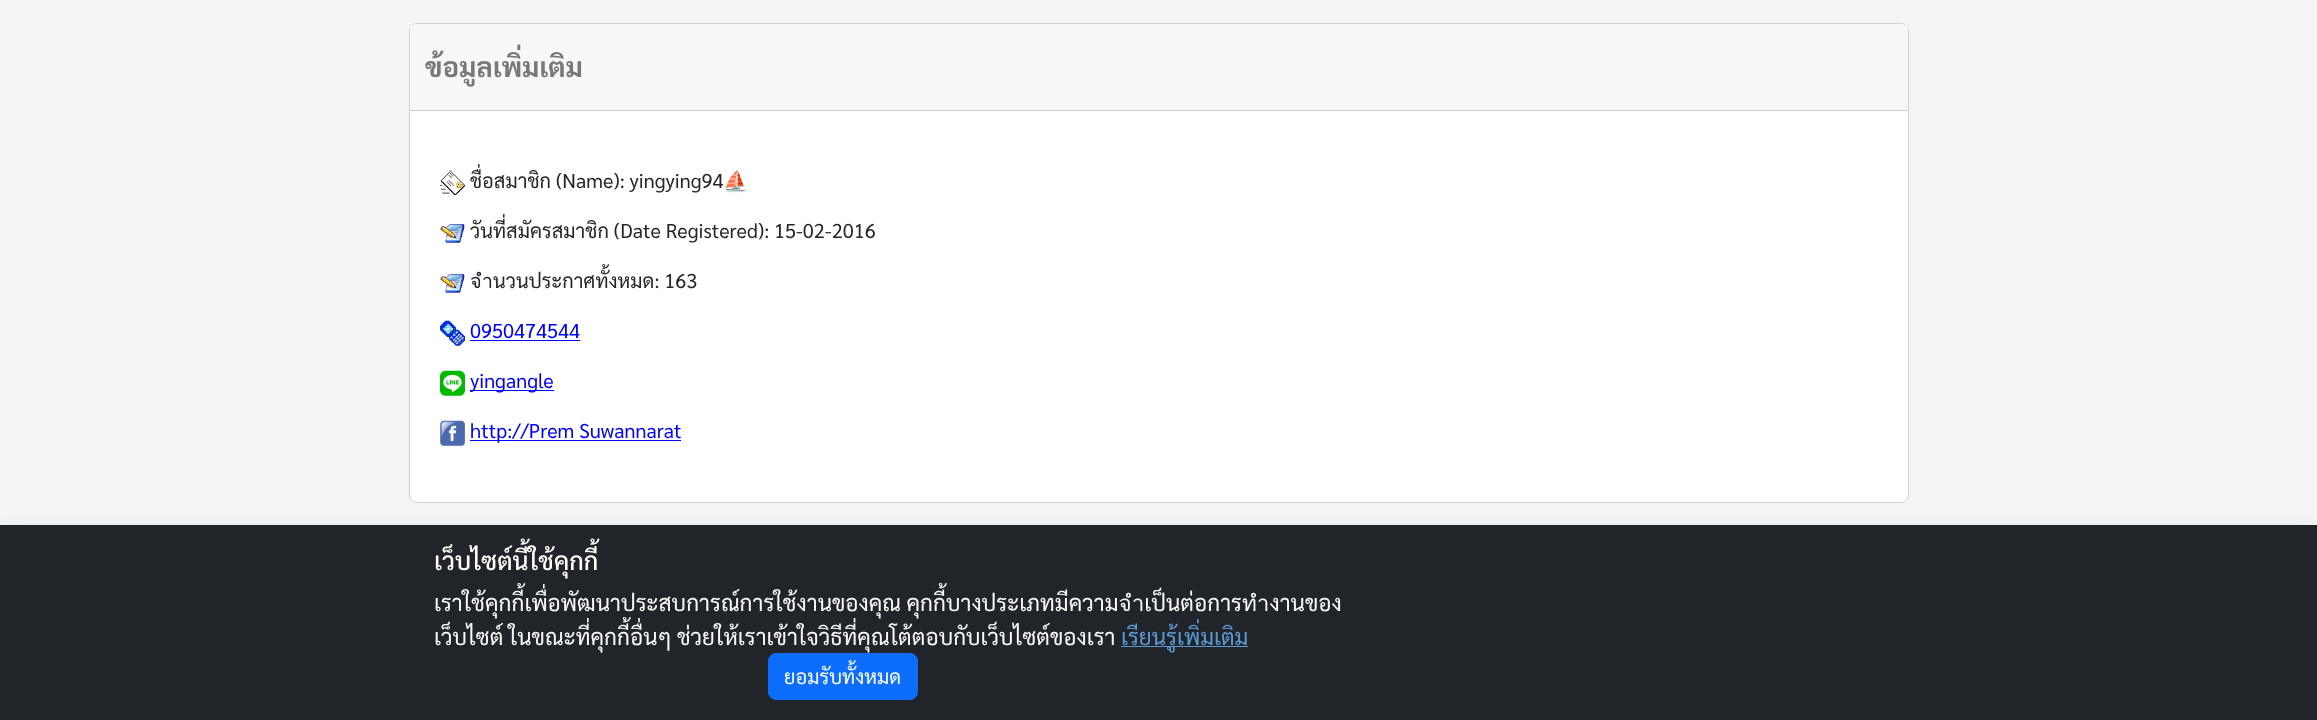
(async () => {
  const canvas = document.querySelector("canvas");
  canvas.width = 2317;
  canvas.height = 720;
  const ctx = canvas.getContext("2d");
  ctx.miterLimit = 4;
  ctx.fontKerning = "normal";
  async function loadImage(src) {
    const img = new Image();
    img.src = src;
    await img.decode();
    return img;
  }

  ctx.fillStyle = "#f4f4f4";
  ctx.fillRect(0, 0, 2317, 720);
  ctx.fillStyle = "#ffffff";
  ctx.beginPath();
  ctx.roundRect(409, 23, 1500, 480, 8);
  ctx.fill();
  ctx.beginPath();
  ctx.roundRect(409.5, 23.5, 1499, 479, 7.5);
  ctx.strokeStyle = "rgba(0, 0, 0, 0.18)";
  ctx.stroke();
  ctx.fillStyle = "#f7f7f7";
  ctx.beginPath();
  ctx.roundRect(410, 24, 1498, 87, [6, 6, 0, 0]);
  ctx.fill();
  ctx.fillStyle = "#cccccc";
  ctx.fillRect(410, 110, 1498, 1);
  ctx.drawImage(await loadImage("img/1.png"), 440, 170, 25, 25);
  ctx.drawImage(await loadImage("img/2.png"), 440, 224, 25, 20);
  ctx.drawImage(await loadImage("img/3.png"), 440, 274, 25, 20);
  ctx.drawImage(await loadImage("img/4.png"), 440, 320, 25, 26);
  ctx.fillStyle = "#0000ff";
  ctx.fillRect(470, 340, 110, 1);
  ctx.drawImage(await loadImage("img/5.png"), 440, 370, 25, 26);
  ctx.fillRect(470, 390, 84, 1);
  ctx.drawImage(await loadImage("img/6.png"), 440, 420, 25, 26);
  ctx.fillRect(470, 440, 211, 1);
  ctx.fillStyle = "rgba(0, 0, 0, 0.15)";
  ctx.filter = "blur(10px)";
  ctx.beginPath();
  ctx.rect(0, 535, 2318, 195);
  ctx.fill();
  ctx.filter = "none";
  ctx.fillStyle = "#212529";
  ctx.fillRect(0, 525, 2317, 195);
  ctx.fillStyle = "#5b9bd5";
  ctx.fillRect(1121, 646, 127, 1);
  ctx.fillStyle = "#0d6efd";
  ctx.beginPath();
  ctx.roundRect(768.5, 653.5, 149, 46, 7.5);
  ctx.fill();
  ctx.strokeStyle = "#0d6efd";
  ctx.stroke();
  ctx.font = "bold 27.5px Sarabun";
  ctx.fillStyle = "#787878";
  ctx.fillText("ข้อมูลเพิ่มเติม", 425, 77);
  ctx.font = "20px Sarabun";
  ctx.fillStyle = "#272727";
  ctx.fillText("ชื่อสมาชิก (Name): yingying94", 470, 188);
  ctx.font = "20px Noto Color Emoji";
  ctx.fillText("⛵", 723, 188);
  ctx.font = "20px Sarabun";
  ctx.fillText("วันที่สมัครสมาชิก (Date Registered): 15-02-2016", 470, 238);
  ctx.fillText("จำนวนประกาศทั้งหมด: 163", 470, 288);
  ctx.fillStyle = "#0000ff";
  for (const [text, x, y] of [
    ["0950474544", 470, 338],
    ["yingangle", 470, 388],
    ["http://Prem Suwannarat", 470, 438],
  ]) {
    ctx.fillText(text, x, y);
  }
  ctx.font = "500 25px Sarabun";
  ctx.fillStyle = "#ffffff";
  ctx.fillText("เว็บไซต์นี้ใช้คุกกี้", 434, 570);
  ctx.font = "22.5px Sarabun";
  ctx.fillStyle = "#f8f9fa";
  ctx.fillText("เราใช้คุกกี้เพื่อพัฒนาประสบการณ์การใช้งานของคุณ คุกกี้บางประเภทมีความจำเป็นต่อการทำงานของ", 434, 611);
  ctx.fillText("เว็บไซต์ ในขณะที่คุกกี้อื่นๆ ช่วยให้เราเข้าใจวิธีที่คุณโต้ตอบกับเว็บไซต์ของเรา", 434, 645);
  ctx.fillStyle = "#5b9bd5";
  ctx.fillText("เรียนรู้เพิ่มเติม", 1121, 645);
  ctx.font = "20px Sarabun";
  ctx.fillStyle = "#ffffff";
  ctx.fillText("ยอมรับทั้งหมด", 784, 684);
})();
